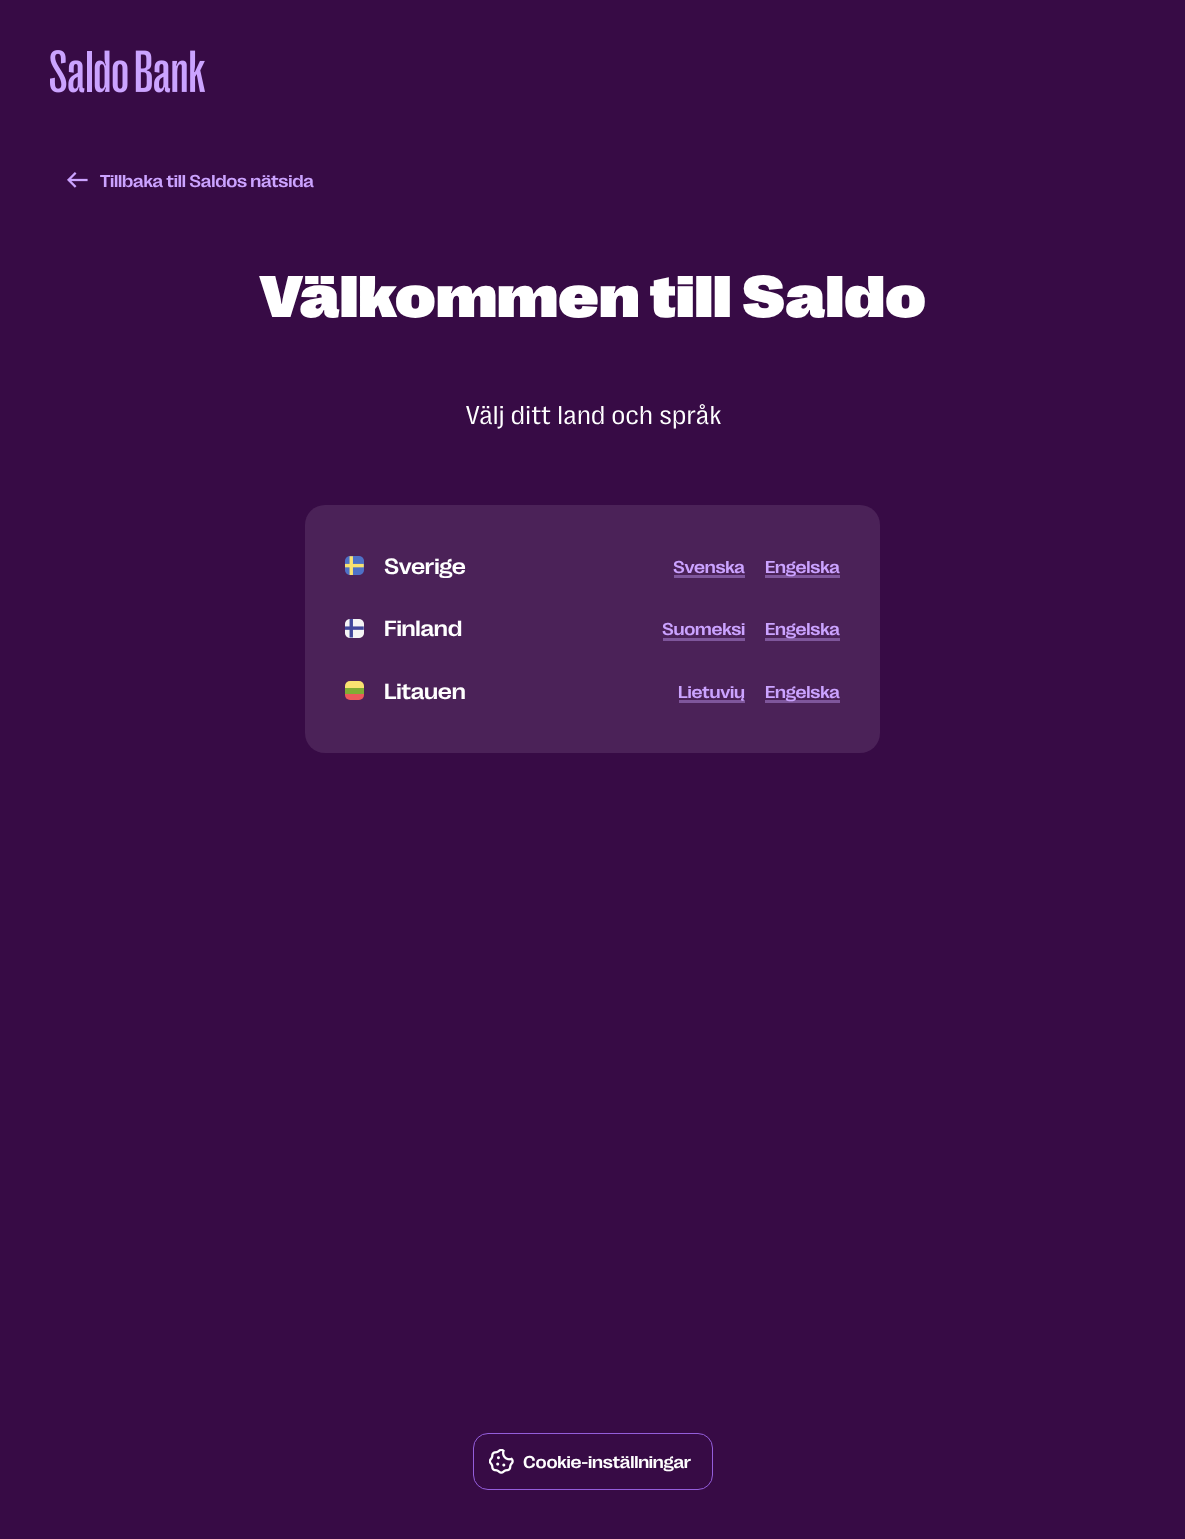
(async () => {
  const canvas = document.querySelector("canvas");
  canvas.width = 1185;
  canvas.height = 1539;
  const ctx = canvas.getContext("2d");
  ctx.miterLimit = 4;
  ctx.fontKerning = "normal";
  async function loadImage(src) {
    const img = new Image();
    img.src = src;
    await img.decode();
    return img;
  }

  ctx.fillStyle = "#370b45";
  ctx.fillRect(0, 0, 1185, 1539);
  ctx.drawImage(await loadImage("img/1.png"), 50, 50, 155, 43);
  ctx.drawImage(await loadImage("img/2.png"), 67, 172, 21, 16);
  ctx.fillStyle = "#4b2258";
  ctx.beginPath();
  ctx.roundRect(305, 505, 575, 248, 20);
  ctx.fill();
  ctx.drawImage(await loadImage("img/3.png"), 345, 556, 19, 19);
  ctx.fillStyle = "#7e569b";
  ctx.fillRect(674, 575, 71, 3);
  ctx.fillRect(765, 575, 75, 3);
  ctx.drawImage(await loadImage("img/4.png"), 345, 619, 19, 19);
  ctx.fillRect(663, 638, 82, 3);
  ctx.fillRect(765, 638, 75, 3);
  ctx.fillStyle = "#fae271";
  ctx.beginPath();
  ctx.roundRect(345, 681, 19, 7, [5, 5, 0, 0]);
  ctx.fill();
  ctx.fillStyle = "#80ad34";
  ctx.fillRect(345, 688, 19, 6);
  ctx.fillStyle = "#ec5a5b";
  ctx.beginPath();
  ctx.roundRect(345, 694, 19, 6, [0, 0, 5, 5]);
  ctx.fill();
  ctx.fillStyle = "#7e569b";
  ctx.fillRect(679, 700, 66, 3);
  ctx.fillRect(765, 700, 75, 3);
  ctx.beginPath();
  ctx.roundRect(473.5, 1433.5, 239, 56, 14.5);
  ctx.strokeStyle = "#945edb";
  ctx.stroke();
  ctx.drawImage(await loadImage("img/5.png"), 489, 1449, 25, 25);
  ctx.letterSpacing = "-0.2px";
  ctx.font = "500 17.5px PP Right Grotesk";
  ctx.fillStyle = "#cba3ff";
  ctx.fillText("Tillbaka till Saldos nätsida", 100, 187);
  ctx.letterSpacing = "0px";
  ctx.font = "900 60px PP Right Grotesk";
  ctx.fillStyle = "#ffffff";
  ctx.fillText("Välkommen till Saldo", 259, 317);
  ctx.letterSpacing = "-0.75px";
  ctx.font = "26.25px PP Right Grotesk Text";
  ctx.fillText("Välj ditt land och språk", 465, 424);
  ctx.letterSpacing = "-0.25px";
  ctx.font = "500 22.5px PP Right Grotesk";
  ctx.fillText("Sverige", 384, 574);
  ctx.letterSpacing = "-0.2px";
  ctx.font = "500 17.5px PP Right Grotesk";
  ctx.fillStyle = "#cba3ff";
  ctx.fillText("Svenska", 673, 573);
  ctx.fillText("Engelska", 765, 573);
  ctx.letterSpacing = "-0.25px";
  ctx.font = "500 22.5px PP Right Grotesk";
  ctx.fillStyle = "#ffffff";
  ctx.fillText("Finland", 384, 636);
  ctx.letterSpacing = "-0.2px";
  ctx.font = "500 17.5px PP Right Grotesk";
  ctx.fillStyle = "#cba3ff";
  ctx.fillText("Suomeksi", 662, 635);
  ctx.fillText("Engelska", 765, 635);
  ctx.letterSpacing = "-0.25px";
  ctx.font = "500 22.5px PP Right Grotesk";
  ctx.fillStyle = "#ffffff";
  ctx.fillText("Litauen", 384, 699);
  ctx.letterSpacing = "-0.2px";
  ctx.font = "500 17.5px PP Right Grotesk";
  ctx.fillStyle = "#cba3ff";
  ctx.fillText("Lietuvių", 678, 698);
  ctx.fillText("Engelska", 765, 698);
  ctx.fillStyle = "#ffffff";
  ctx.fillText("Cookie-inställningar", 523, 1468);
})();
